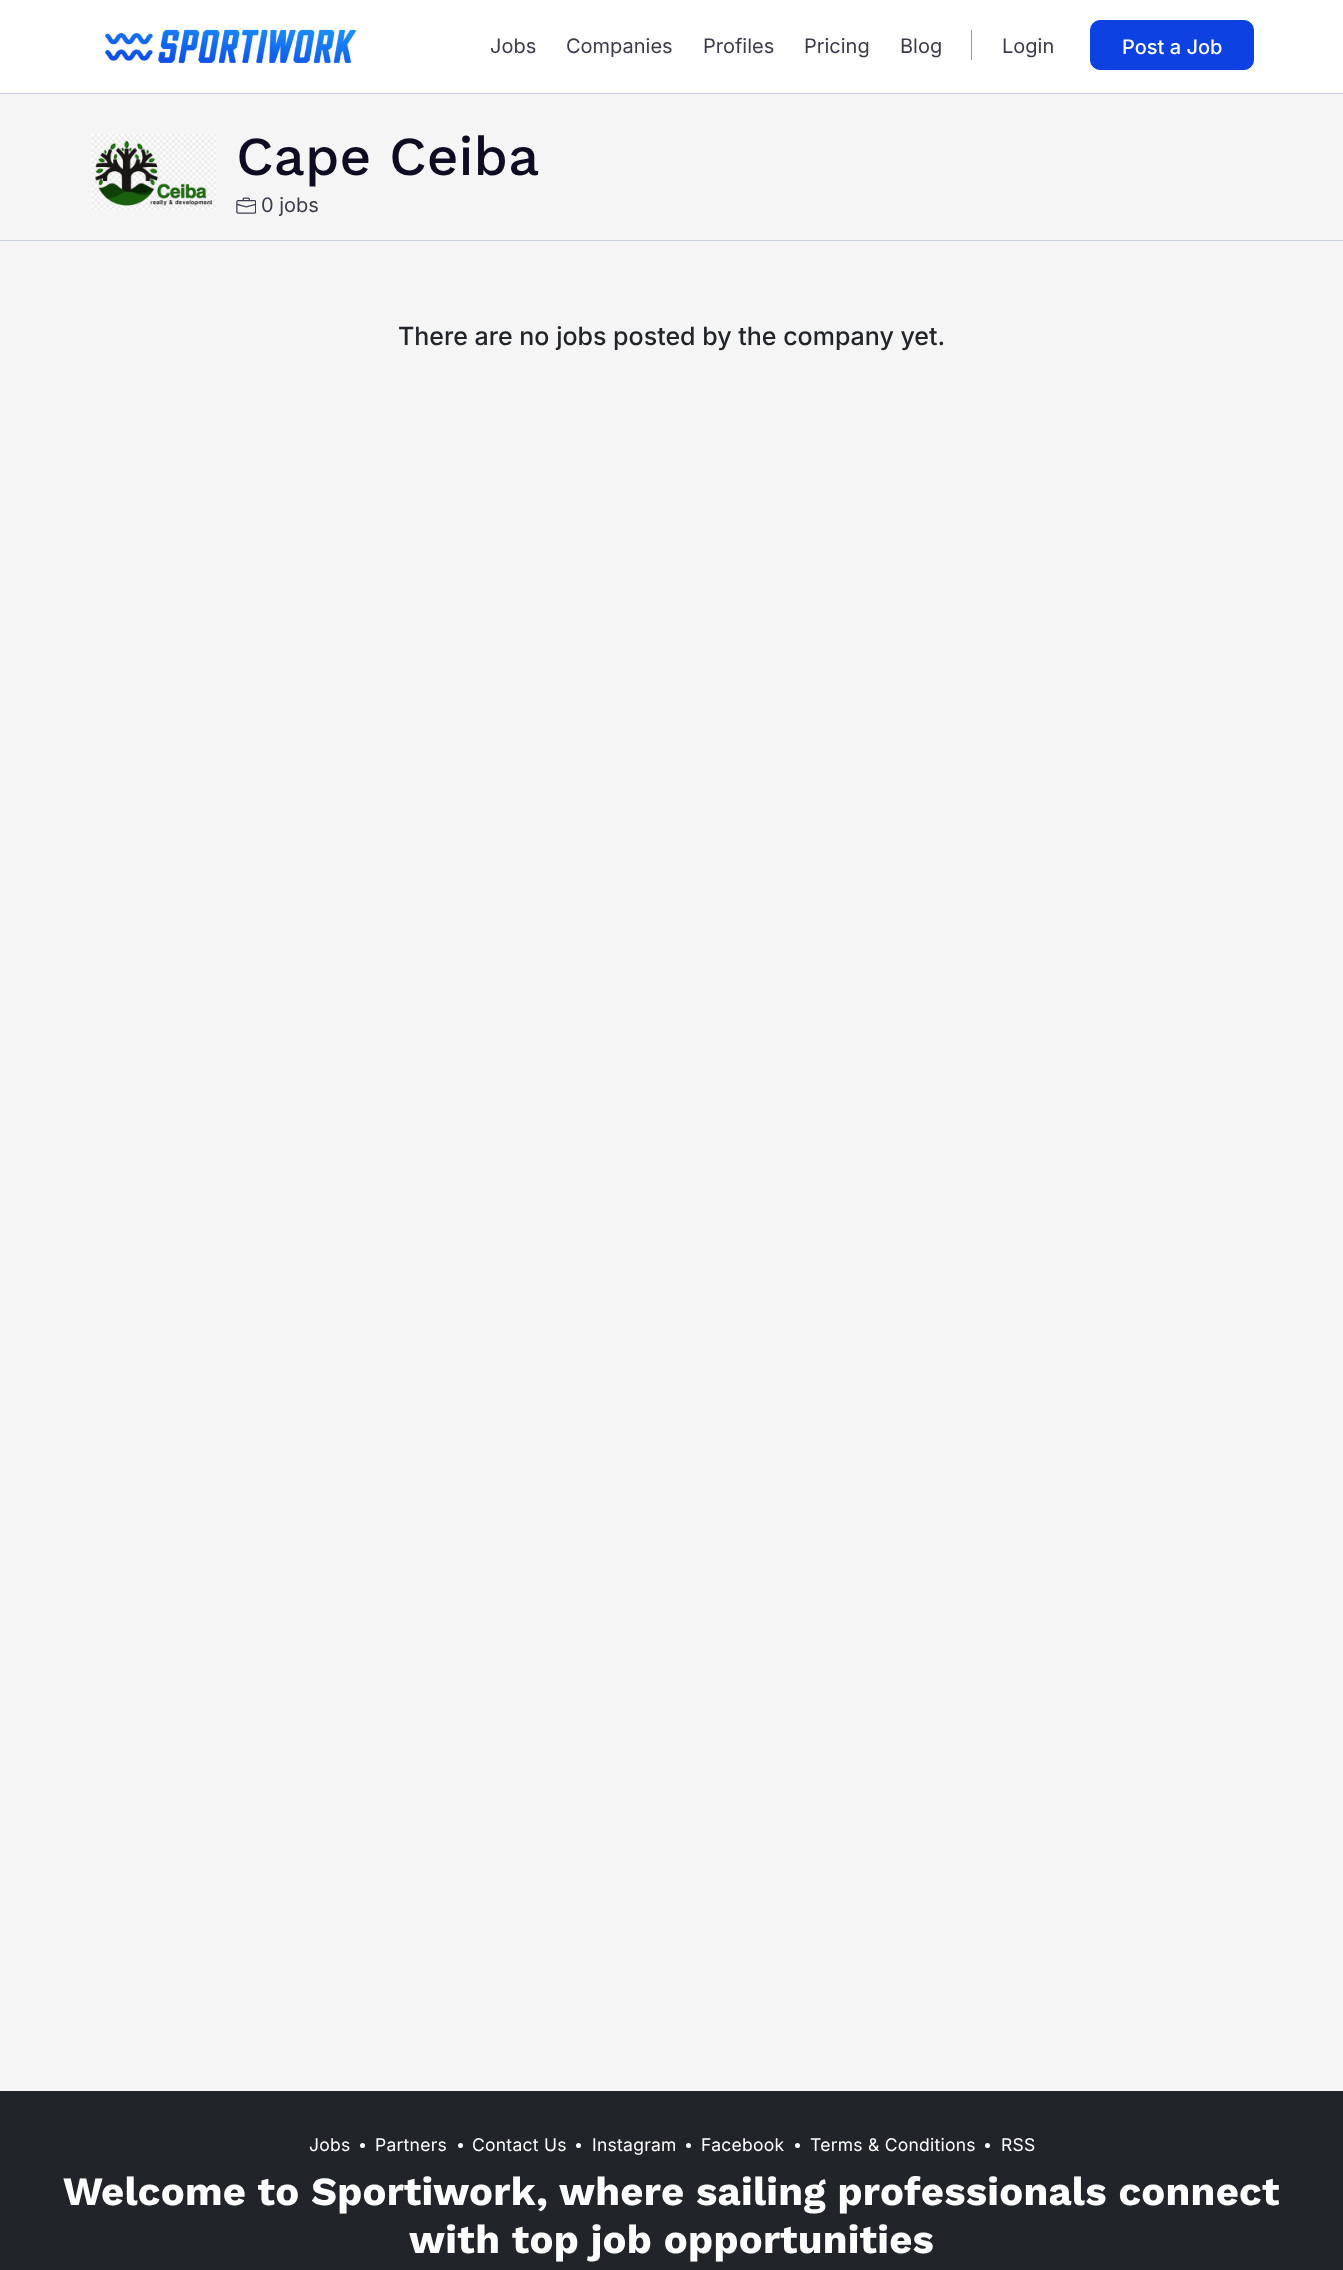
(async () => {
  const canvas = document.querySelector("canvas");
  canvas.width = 1343;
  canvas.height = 2270;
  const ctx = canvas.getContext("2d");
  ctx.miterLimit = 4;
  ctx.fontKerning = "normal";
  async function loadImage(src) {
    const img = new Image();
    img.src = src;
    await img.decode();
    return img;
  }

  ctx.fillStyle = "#f5f5f5";
  ctx.fillRect(0, 0, 1343, 2270);
  ctx.fillStyle = "#ffffff";
  ctx.fillRect(0, 0, 1343, 93);
  ctx.fillStyle = "#cbcedf";
  ctx.fillRect(0, 93, 1343, 1);
  ctx.drawImage(await loadImage("img/1.png"), 105, 29, 252, 35);
  ctx.fillStyle = "#9194b3";
  ctx.fillRect(971, 30, 1, 30);
  ctx.fillStyle = "#0d41e1";
  ctx.beginPath();
  ctx.roundRect(1090.5, 20.5, 163, 49, 9.5);
  ctx.fill();
  ctx.strokeStyle = "#0d41e1";
  ctx.stroke();
  ctx.drawImage(await loadImage("img/2.png"), 91, 134, 125, 76);
  ctx.drawImage(await loadImage("img/3.png"), 236, 197, 20, 17);
  ctx.fillStyle = "#cbcedf";
  ctx.fillRect(0, 240, 1343, 1);
  ctx.fillStyle = "#212529";
  ctx.fillRect(0, 2091, 1343, 179);
  ctx.fillStyle = "#ffffff";
  ctx.beginPath();
  ctx.arc(362.5, 2145.5, 2.5, 0, Math.PI * 2);
  ctx.fill();
  ctx.beginPath();
  ctx.arc(460.5, 2145.5, 2.5, 0, Math.PI * 2);
  ctx.fill();
  ctx.beginPath();
  ctx.arc(578.5, 2145.5, 2.5, 0, Math.PI * 2);
  ctx.fill();
  ctx.beginPath();
  ctx.arc(688.5, 2145.5, 2.5, 0, Math.PI * 2);
  ctx.fill();
  ctx.beginPath();
  ctx.arc(797.5, 2145.5, 2.5, 0, Math.PI * 2);
  ctx.fill();
  ctx.beginPath();
  ctx.arc(987.5, 2145.5, 2.5, 0, Math.PI * 2);
  ctx.fill();
  ctx.font = "20px Inter";
  ctx.fillStyle = "#3b3b4c";
  for (const [text, x, y] of [
    ["Jobs", 490, 53],
    ["Companies", 566, 53],
    ["Profiles", 703, 53],
    ["Pricing", 804, 53],
    ["Blog", 900, 53],
    ["Login", 1002, 53],
  ]) {
    ctx.fillText(text, x, y);
  }
  ctx.font = "500 20px Inter";
  ctx.fillStyle = "#ffffff";
  ctx.fillText("Post a Job", 1122, 54);
  ctx.font = "500 55px Work Sans";
  ctx.fillStyle = "#0d0c22";
  ctx.fillText("Cape Ceiba", 236, 175);
  ctx.font = "20px Inter";
  ctx.fillStyle = "#3b3b4c";
  ctx.fillText("0 jobs", 261, 212);
  ctx.font = "500 25px Inter";
  ctx.fillStyle = "#212529";
  ctx.fillText("There are no jobs posted by the company yet.", 398, 345);
  ctx.letterSpacing = "0.25px";
  ctx.font = "17.5px Inter";
  ctx.fillStyle = "#ffffff";
  for (const [text, x, y] of [
    ["Jobs", 309, 2151],
    ["Partners", 375, 2151],
    ["Contact Us", 472, 2151],
    ["Instagram", 592, 2151],
    ["Facebook", 701, 2151],
    ["Terms & Conditions", 810, 2151],
    ["RSS", 1001, 2151],
  ]) {
    ctx.fillText(text, x, y);
  }
  ctx.font = "bold 40px Work Sans";
  ctx.fillText("Welcome to Sportiwork, where sailing professionals connect", 63, 2205);
  ctx.fillText("with top job opportunities", 409, 2253);
})();
